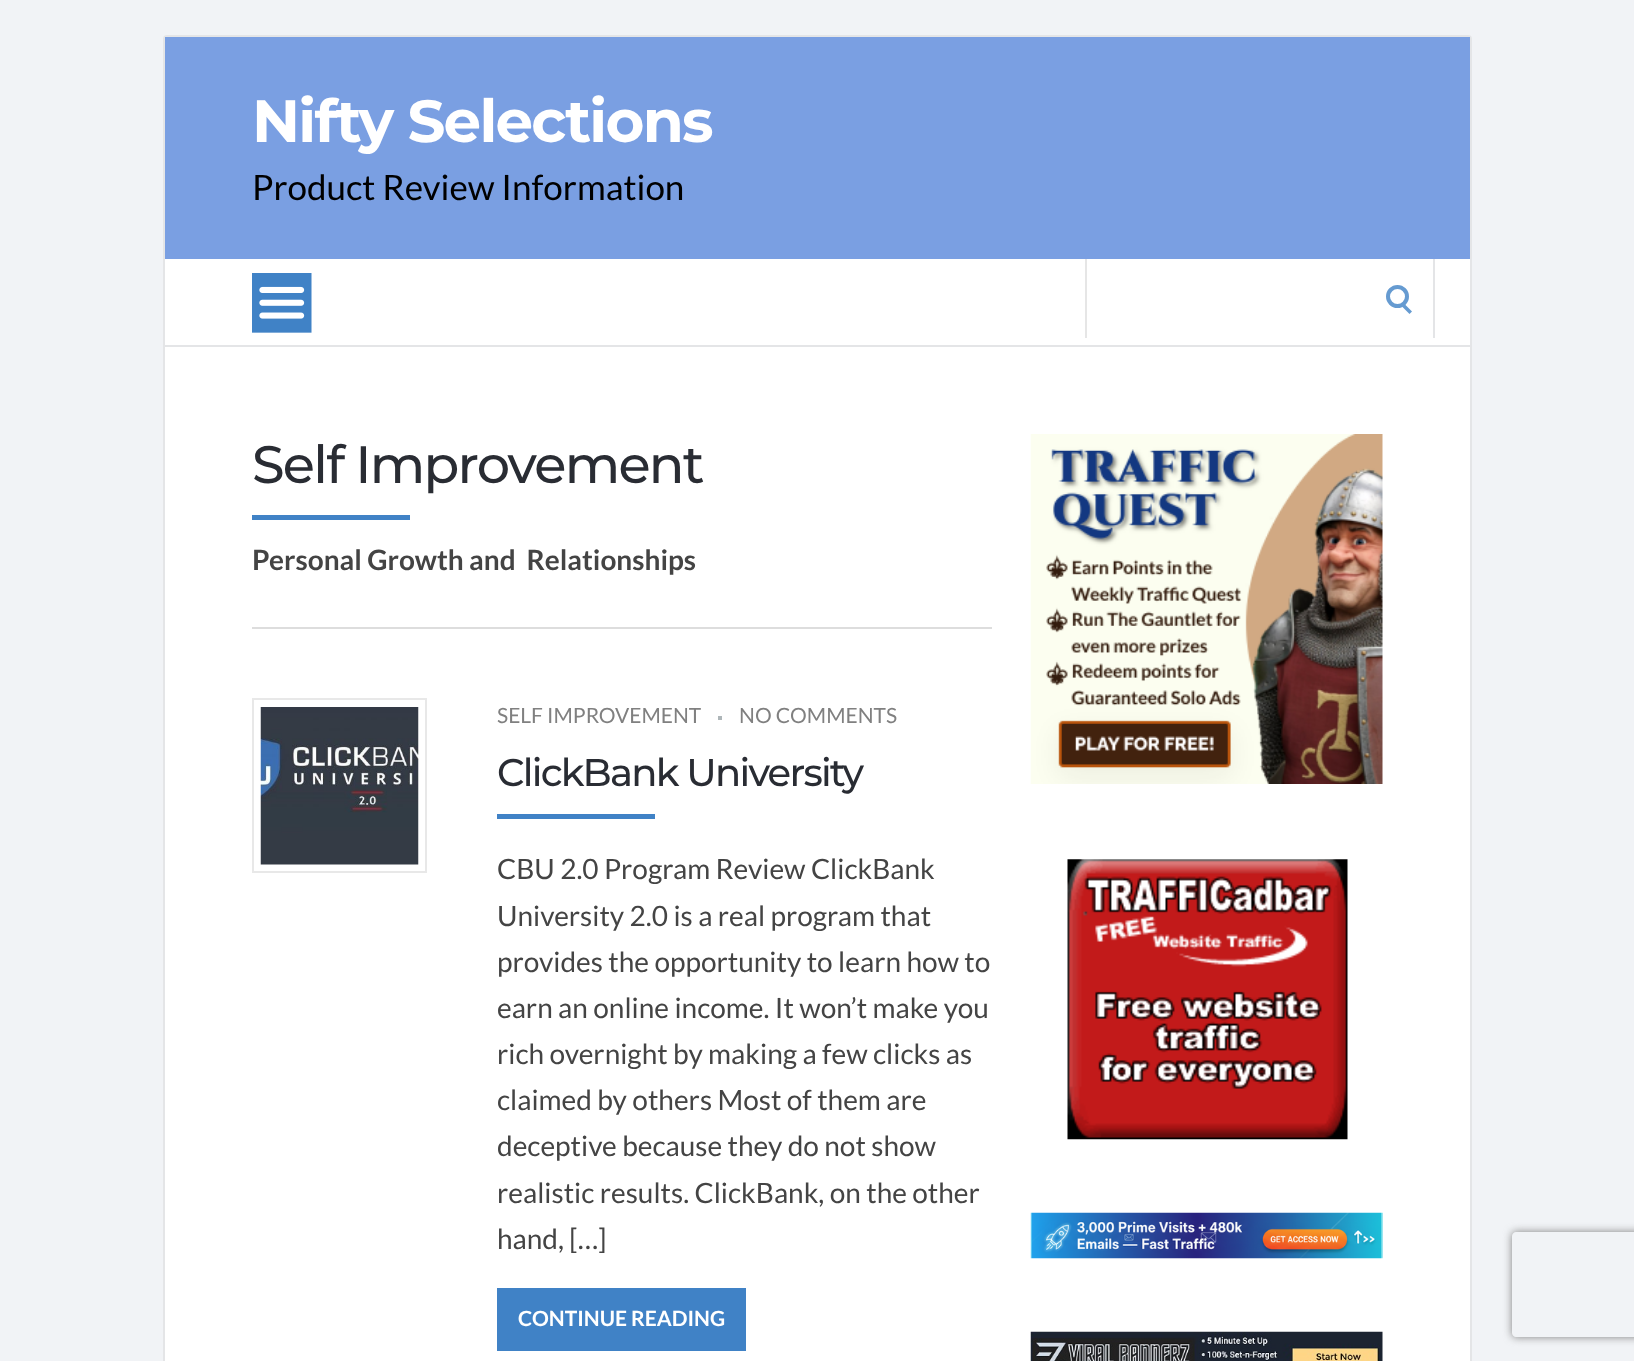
(async () => {
  const canvas = document.querySelector("canvas");
  canvas.width = 1634;
  canvas.height = 1361;
  const ctx = canvas.getContext("2d");
  ctx.miterLimit = 4;
  ctx.fontKerning = "normal";
  async function loadImage(src) {
    const img = new Image();
    img.src = src;
    await img.decode();
    return img;
  }
  let path;

  ctx.fillStyle = "#f1f3f6";
  ctx.fillRect(0, 0, 1634, 1361);
  ctx.fillStyle = "#ffffff";
  ctx.beginPath();
  ctx.roundRect(164, 36, 1307, 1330, 3);
  ctx.fill();
  ctx.strokeStyle = "#e4e5e7";
  ctx.lineWidth = 2;
  ctx.stroke();
  ctx.fillStyle = "#7a9fe2";
  ctx.fillRect(165, 37, 1305, 222);
  ctx.fillStyle = "#e4e5e7";
  ctx.fillRect(165, 345, 1305, 2);
  ctx.drawImage(await loadImage("img/1.png"), 252, 273, 60, 60);
  ctx.fillRect(1433, 259, 2, 79);
  ctx.fillStyle = "#e6e6e6";
  ctx.fillRect(1085, 259, 2, 79);
  ctx.beginPath();
  ctx.arc(1397.5, 296.5, 9.5, 0, Math.PI * 2);
  ctx.strokeStyle = "#669bd1";
  ctx.lineWidth = 4;
  ctx.stroke();
  ctx.fillStyle = "#669bd1";
  path = new Path2D("M1402 306.5L1404.5 304L1412 311.5L1409.5 314Z");
  ctx.fill(path);
  ctx.fillStyle = "#4082c6";
  ctx.fillRect(252, 515, 158, 5);
  ctx.fillStyle = "#dddddd";
  ctx.fillRect(252, 627, 740, 2);
  ctx.strokeStyle = "#e8e8e8";
  ctx.lineWidth = 2;
  ctx.strokeRect(253, 699, 173, 173);
  ctx.drawImage(await loadImage("img/2.png"), 260, 707, 159, 158);
  for (const [x, y, w, h, color] of [
    [718, 716, 4, 4, "#aeb6b9"],
    [497, 814, 158, 5, "#4082c6"],
    [497, 1288, 249, 63, "#4082c6"],
  ]) {
    ctx.fillStyle = color;
    ctx.fillRect(x, y, w, h);
  }
  ctx.drawImage(await loadImage("img/3.png"), 1030, 434, 353, 350);
  ctx.drawImage(await loadImage("img/4.png"), 1067, 859, 281, 281);
  ctx.drawImage(await loadImage("img/5.png"), 1030, 1212, 353, 47);
  ctx.drawImage(await loadImage("img/6.png"), 1030, 1331, 353, 30);
  ctx.save();
  path = new Path2D("M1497 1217H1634V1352H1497ZM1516 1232H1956C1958 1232 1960 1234 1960 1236V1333C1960 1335 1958 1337 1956 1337H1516C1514 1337 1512 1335 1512 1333V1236C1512 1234 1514 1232 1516 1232Z");
  ctx.clip(path, "evenodd");
  ctx.fillStyle = "#808080";
  ctx.filter = "blur(4.5px)";
  ctx.beginPath();
  ctx.roundRect(1512, 1232, 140, 105, 4);
  ctx.fill();
  ctx.filter = "none";
  ctx.restore();
  ctx.letterSpacing = "-1.75px";
  ctx.font = "bold 59.5px Montserrat";
  ctx.fillStyle = "#ffffff";
  ctx.fillText("Nifty Selections", 252, 142);
  ctx.letterSpacing = "0px";
  ctx.font = "35px Lato";
  ctx.fillStyle = "#000000";
  ctx.fillText("Product Review Information", 252, 200);
  ctx.letterSpacing = "-1.75px";
  ctx.font = "500 52.5px Montserrat";
  ctx.fillStyle = "#292c33";
  ctx.fillText("Self Improvement", 252, 483);
  ctx.letterSpacing = "0px";
  ctx.font = "bold 28px Lato";
  ctx.fillStyle = "#444444";
  ctx.fillText("Personal Growth and  Relationships", 252, 570);
  ctx.font = "21px Lato";
  ctx.fillStyle = "#808080";
  ctx.fillText("SELF IMPROVEMENT", 497, 723);
  ctx.fillText("NO COMMENTS", 739, 723);
  ctx.letterSpacing = "-1.75px";
  ctx.font = "500 38.5px Montserrat";
  ctx.fillStyle = "#292c33";
  ctx.fillText("ClickBank University", 497, 786);
  ctx.letterSpacing = "0px";
  ctx.font = "28px Lato";
  ctx.fillStyle = "#444444";
  for (const [text, x, y] of [
    ["CBU 2.0 Program Review ClickBank", 497, 879],
    ["University 2.0 is a real program that", 497, 926],
    ["provides the opportunity to learn how to", 497, 972],
    ["earn an online income. It won’t make you", 497, 1018],
    ["rich overnight by making a few clicks as", 497, 1064],
    ["claimed by others Most of them are", 497, 1110],
    ["deceptive because they do not show", 497, 1156],
    ["realistic results. ClickBank, on the other", 497, 1203],
    ["hand, […]", 497, 1249],
  ]) {
    ctx.fillText(text, x, y);
  }
  ctx.font = "bold 21px Lato";
  ctx.fillStyle = "#ffffff";
  ctx.fillText("CONTINUE READING", 518, 1326);
})();
